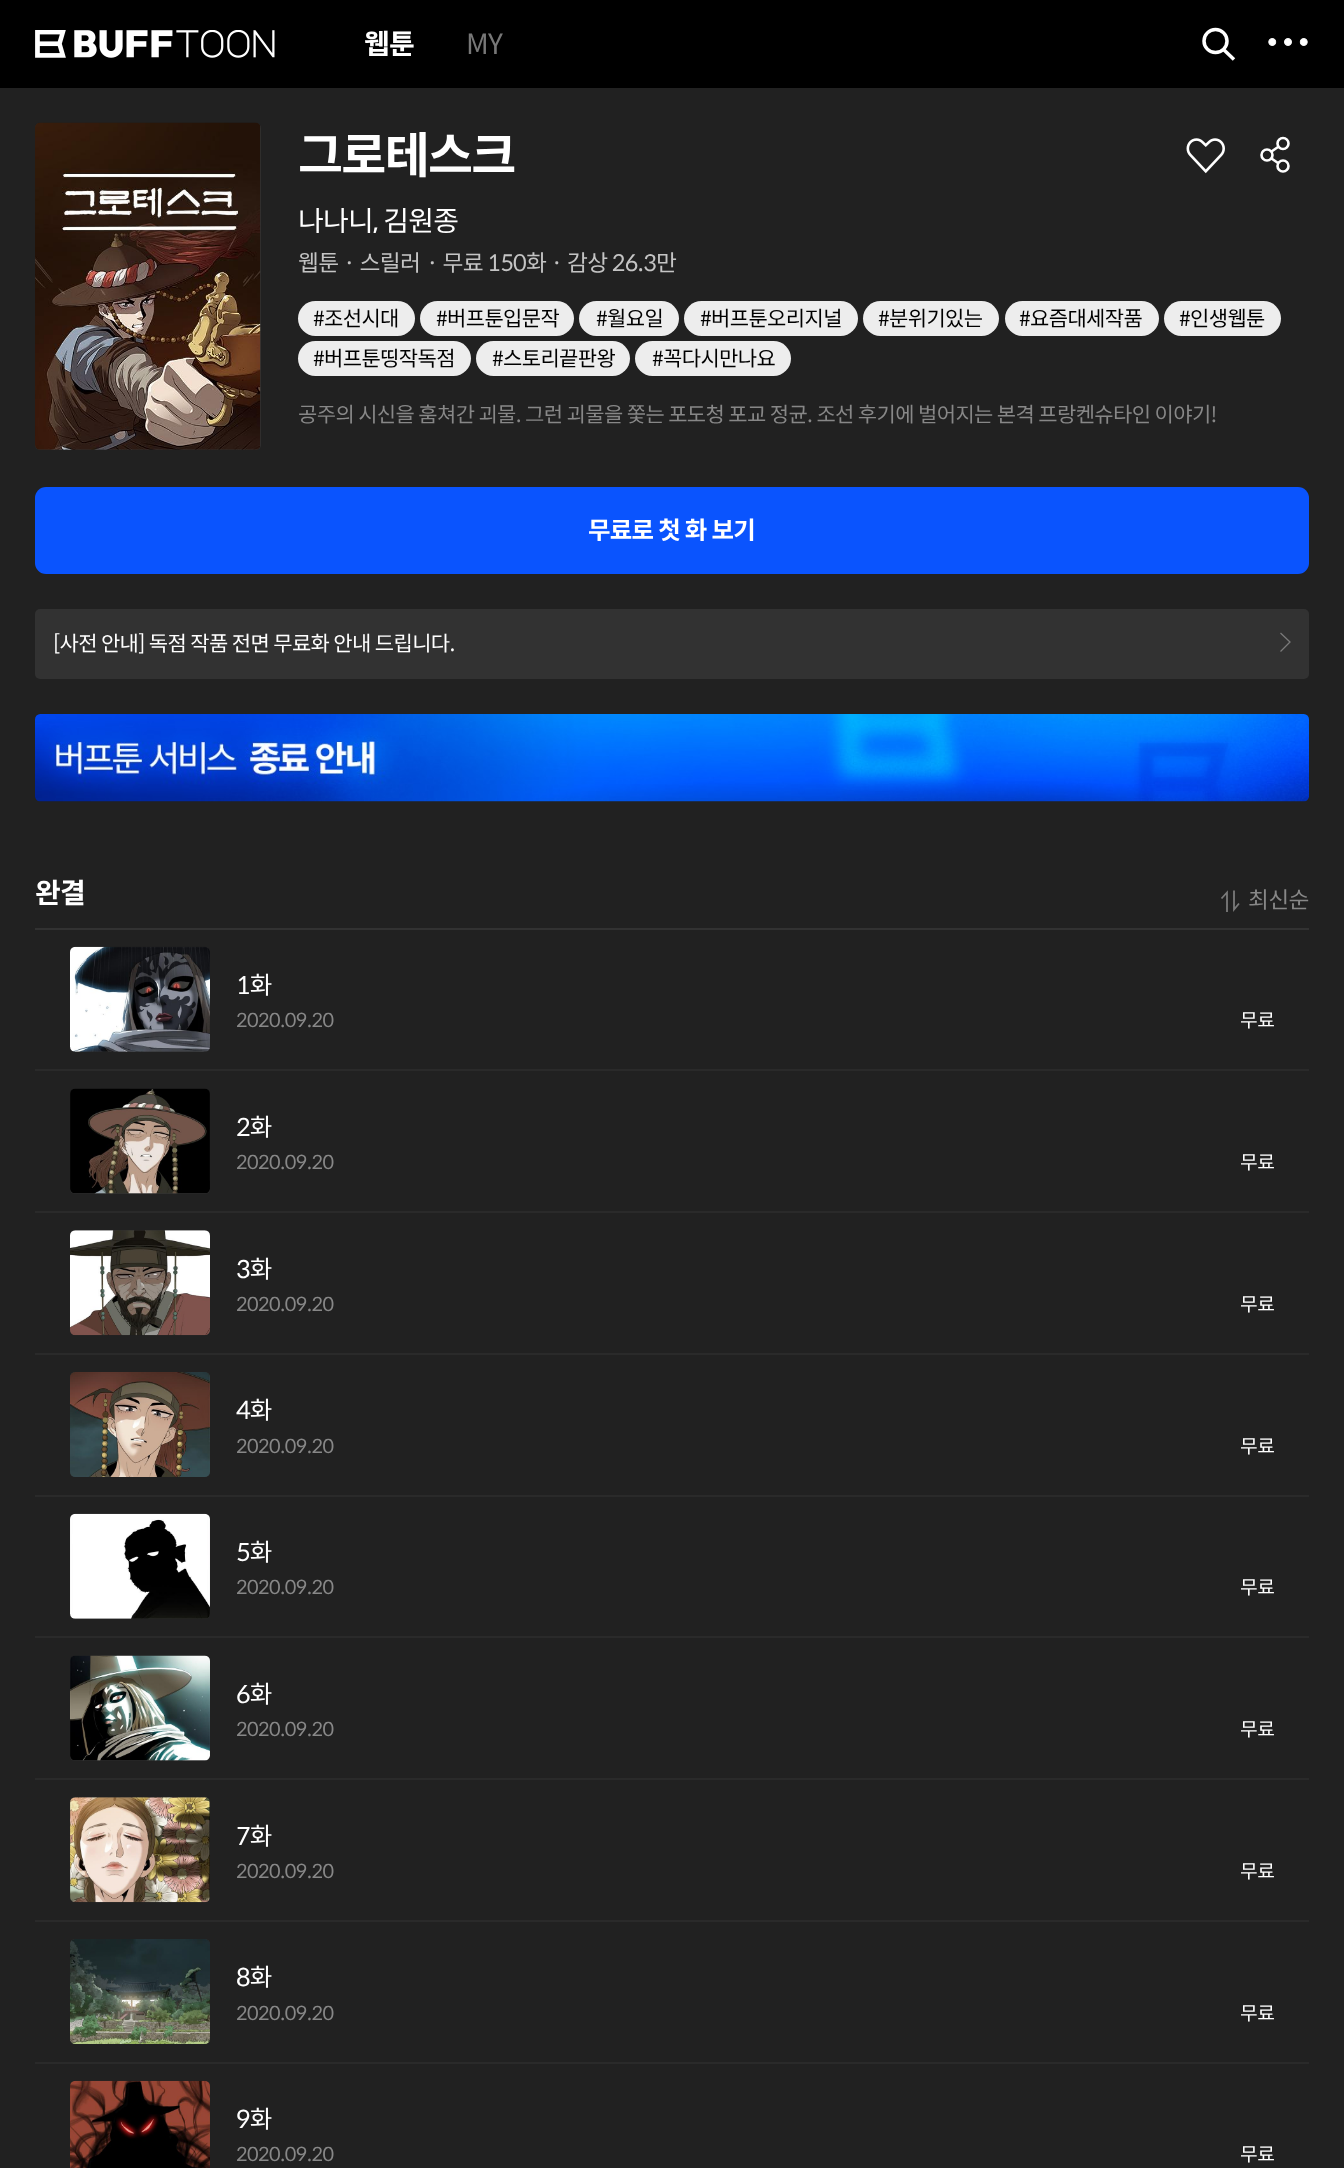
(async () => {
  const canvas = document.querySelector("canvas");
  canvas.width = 1344;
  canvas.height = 2168;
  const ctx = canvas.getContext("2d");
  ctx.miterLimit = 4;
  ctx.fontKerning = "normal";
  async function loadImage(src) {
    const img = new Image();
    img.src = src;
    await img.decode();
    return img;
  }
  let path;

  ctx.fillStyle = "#212121";
  ctx.fillRect(0, 0, 1344, 2168);
  ctx.fillStyle = "#000000";
  ctx.fillRect(0, 0, 1344, 88);
  ctx.drawImage(await loadImage("img/1.png"), 35, 30, 240, 28);
  path = new Path2D("M1223 49L1234 59.5");
  ctx.strokeStyle = "#ffffff";
  ctx.lineWidth = 3.5;
  ctx.stroke(path);
  ctx.beginPath();
  ctx.arc(1215.5, 41, 11.5, 0, Math.PI * 2);
  ctx.stroke();
  ctx.drawImage(await loadImage("img/2.png"), 1268, 38, 40, 8);
  ctx.fillStyle = "#323232";
  ctx.beginPath();
  ctx.roundRect(35, 123, 226, 327, 5);
  ctx.fill();
  ctx.drawImage(await loadImage("img/3.png"), 35, 122, 226, 328);
  ctx.drawImage(await loadImage("img/4.png"), 1186, 138, 39, 36);
  ctx.beginPath();
  ctx.arc(1283, 143.5, 5.5, 0, Math.PI * 2);
  ctx.lineWidth = 2.6;
  ctx.stroke();
  ctx.beginPath();
  ctx.arc(1283, 166, 5.5, 0, Math.PI * 2);
  ctx.stroke();
  ctx.beginPath();
  ctx.arc(1267, 155, 5.5, 0, Math.PI * 2);
  ctx.stroke();
  path = new Path2D("M1278 147L1271.5 151.5M1278 163L1271.5 158.5");
  ctx.stroke(path);
  ctx.fillStyle = "#ededed";
  ctx.beginPath();
  ctx.roundRect(298, 301, 117, 35, 17.5);
  ctx.fill();
  ctx.beginPath();
  ctx.roundRect(420, 301, 154, 35, 17.5);
  ctx.fill();
  ctx.beginPath();
  ctx.roundRect(579, 301, 100, 35, 17.5);
  ctx.fill();
  ctx.beginPath();
  ctx.roundRect(684, 301, 174, 35, 17.5);
  ctx.fill();
  ctx.beginPath();
  ctx.roundRect(863, 301, 136, 35, 17.5);
  ctx.fill();
  ctx.beginPath();
  ctx.roundRect(1005, 301, 154, 35, 17.5);
  ctx.fill();
  ctx.beginPath();
  ctx.roundRect(1164, 301, 117, 35, 17.5);
  ctx.fill();
  ctx.beginPath();
  ctx.roundRect(298, 341, 173, 35, 17.5);
  ctx.fill();
  ctx.beginPath();
  ctx.roundRect(476, 341, 154, 35, 17.5);
  ctx.fill();
  ctx.beginPath();
  ctx.roundRect(635, 341, 156, 35, 17.5);
  ctx.fill();
  ctx.fillStyle = "#0a54fe";
  ctx.beginPath();
  ctx.roundRect(35, 487, 1274, 87, 11);
  ctx.fill();
  ctx.fillStyle = "#323232";
  ctx.beginPath();
  ctx.roundRect(35, 609, 1274, 70, 5);
  ctx.fill();
  path = new Path2D("M1280.5 633L1290 642L1280.5 651.5");
  ctx.strokeStyle = "#7a7a7a";
  ctx.lineWidth = 1.3;
  ctx.stroke(path);
  ctx.drawImage(await loadImage("img/5.png"), 35, 714, 1274, 88);
  path = new Path2D("M1221.5 898.5L1227 892.5V912M1239 903.5L1234 909.5V890.5");
  ctx.lineWidth = 1.8;
  ctx.stroke(path);
  ctx.fillRect(35, 928, 1274, 2);
  ctx.fillStyle = "#2a2a2a";
  ctx.fillRect(35, 1069, 1274, 2);
  ctx.fillStyle = "#323232";
  ctx.beginPath();
  ctx.roundRect(70, 947, 140, 105, 5);
  ctx.fill();
  ctx.drawImage(await loadImage("img/6.png"), 70, 946, 140, 106);
  ctx.fillStyle = "#2a2a2a";
  ctx.fillRect(35, 1211, 1274, 2);
  ctx.fillStyle = "#323232";
  ctx.beginPath();
  ctx.roundRect(70, 1089, 140, 105, 5);
  ctx.fill();
  ctx.drawImage(await loadImage("img/7.png"), 70, 1088, 140, 106);
  ctx.fillStyle = "#2a2a2a";
  ctx.fillRect(35, 1353, 1274, 2);
  ctx.fillStyle = "#323232";
  ctx.beginPath();
  ctx.roundRect(70, 1230, 140, 105, 5);
  ctx.fill();
  ctx.drawImage(await loadImage("img/8.png"), 70, 1230, 140, 106);
  ctx.fillStyle = "#2a2a2a";
  ctx.fillRect(35, 1495, 1274, 2);
  ctx.fillStyle = "#323232";
  ctx.beginPath();
  ctx.roundRect(70, 1372, 140, 105, 5);
  ctx.fill();
  ctx.drawImage(await loadImage("img/9.png"), 70, 1372, 140, 105);
  ctx.fillStyle = "#2a2a2a";
  ctx.fillRect(35, 1636, 1274, 2);
  ctx.fillStyle = "#323232";
  ctx.beginPath();
  ctx.roundRect(70, 1514, 140, 105, 5);
  ctx.fill();
  ctx.drawImage(await loadImage("img/10.png"), 70, 1513, 140, 106);
  ctx.fillStyle = "#2a2a2a";
  ctx.fillRect(35, 1778, 1274, 2);
  ctx.fillStyle = "#323232";
  ctx.beginPath();
  ctx.roundRect(70, 1656, 140, 105, 5);
  ctx.fill();
  ctx.drawImage(await loadImage("img/11.png"), 70, 1655, 140, 106);
  ctx.fillStyle = "#2a2a2a";
  ctx.fillRect(35, 1920, 1274, 2);
  ctx.fillStyle = "#323232";
  ctx.beginPath();
  ctx.roundRect(70, 1797, 140, 105, 5);
  ctx.fill();
  ctx.drawImage(await loadImage("img/12.png"), 70, 1797, 140, 106);
  ctx.fillStyle = "#2a2a2a";
  ctx.fillRect(35, 2062, 1274, 2);
  ctx.fillStyle = "#323232";
  ctx.beginPath();
  ctx.roundRect(70, 1939, 140, 105, 5);
  ctx.fill();
  ctx.drawImage(await loadImage("img/13.png"), 70, 1939, 140, 105);
  ctx.drawImage(await loadImage("img/14.png"), 70, 2080, 140, 88);
  ctx.letterSpacing = "-0.75px";
  ctx.font = "bold 28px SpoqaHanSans";
  ctx.fillStyle = "#ffffff";
  ctx.fillText("웹툰", 364, 54);
  ctx.font = "28px SpoqaHanSans";
  ctx.fillStyle = "#777777";
  ctx.fillText("MY", 466, 54);
  ctx.letterSpacing = "-1.75px";
  ctx.font = "bold 49px SpoqaHanSans";
  ctx.fillStyle = "#ffffff";
  ctx.fillText("그로테스크", 298, 173);
  ctx.letterSpacing = "-0.75px";
  ctx.font = "28px SpoqaHanSans";
  ctx.fillText("나나니, 김원종", 298, 231);
  ctx.letterSpacing = "-0.7px";
  ctx.font = "22.75px SpoqaHanSans";
  ctx.fillStyle = "#c4c4c4";
  for (const [text, x, y] of [
    ["웹툰", 298, 271],
    ["· 스릴러", 343, 271],
    ["· 무료 150화 · 감상 26.3만", 426, 271],
  ]) {
    ctx.fillText(text, x, y);
  }
  ctx.letterSpacing = "-0.63px";
  ctx.font = "21px SpoqaHanSans";
  ctx.fillStyle = "#000000";
  for (const [text, x, y] of [
    ["#조선시대", 313, 326],
    ["#버프툰입문작", 436, 326],
    ["#월요일", 596, 326],
    ["#버프툰오리지널", 700, 326],
    ["#분위기있는", 878, 326],
    ["#요즘대세작품", 1019, 326],
    ["#인생웹툰", 1179, 326],
    ["#버프툰띵작독점", 313, 366],
    ["#스토리끝판왕", 492, 366],
    ["#꼭다시만나요", 652, 366],
  ]) {
    ctx.fillText(text, x, y);
  }
  ctx.fillStyle = "#878787";
  ctx.fillText("공주의 시신을 훔쳐간 괴물. 그런 괴물을 쫓는 포도청 포교 정균. 조선 후기에 벌어지는 본격 프랑켄슈타인 이야기!", 298, 422);
  ctx.letterSpacing = "-0.75px";
  ctx.font = "bold 24.5px SpoqaHanSans";
  ctx.fillStyle = "#ffffff";
  ctx.fillText("무료로 첫 화 보기", 588, 539);
  ctx.letterSpacing = "-0.63px";
  ctx.font = "21px SpoqaHanSans";
  ctx.fillText("[사전 안내] 독점 작품 전면 무료화 안내 드립니다.", 53, 651);
  ctx.letterSpacing = "-0.75px";
  ctx.font = "bold 28px SpoqaHanSans";
  ctx.fillText("완결", 35, 903);
  ctx.letterSpacing = "-0.7px";
  ctx.font = "22.75px SpoqaHanSans";
  ctx.fillStyle = "#878787";
  ctx.fillText("최신순", 1248, 908);
  ctx.letterSpacing = "-0.75px";
  ctx.font = "24.5px SpoqaHanSans";
  ctx.fillStyle = "#ffffff";
  ctx.fillText("1화", 236, 994);
  ctx.letterSpacing = "-0.5px";
  ctx.font = "19.25px SpoqaHanSans";
  ctx.fillStyle = "#878787";
  ctx.fillText("2020.09.20", 236, 1027);
  ctx.fillStyle = "#ffffff";
  ctx.fillText("무료", 1240, 1027);
  ctx.letterSpacing = "-0.75px";
  ctx.font = "24.5px SpoqaHanSans";
  ctx.fillText("2화", 236, 1136);
  ctx.letterSpacing = "-0.5px";
  ctx.font = "19.25px SpoqaHanSans";
  ctx.fillStyle = "#878787";
  ctx.fillText("2020.09.20", 236, 1169);
  ctx.fillStyle = "#ffffff";
  ctx.fillText("무료", 1240, 1169);
  ctx.letterSpacing = "-0.75px";
  ctx.font = "24.5px SpoqaHanSans";
  ctx.fillText("3화", 236, 1278);
  ctx.letterSpacing = "-0.5px";
  ctx.font = "19.25px SpoqaHanSans";
  ctx.fillStyle = "#878787";
  ctx.fillText("2020.09.20", 236, 1311);
  ctx.fillStyle = "#ffffff";
  ctx.fillText("무료", 1240, 1311);
  ctx.letterSpacing = "-0.75px";
  ctx.font = "24.5px SpoqaHanSans";
  ctx.fillText("4화", 236, 1419);
  ctx.letterSpacing = "-0.5px";
  ctx.font = "19.25px SpoqaHanSans";
  ctx.fillStyle = "#878787";
  ctx.fillText("2020.09.20", 236, 1453);
  ctx.fillStyle = "#ffffff";
  ctx.fillText("무료", 1240, 1453);
  ctx.letterSpacing = "-0.75px";
  ctx.font = "24.5px SpoqaHanSans";
  ctx.fillText("5화", 236, 1561);
  ctx.letterSpacing = "-0.5px";
  ctx.font = "19.25px SpoqaHanSans";
  ctx.fillStyle = "#878787";
  ctx.fillText("2020.09.20", 236, 1594);
  ctx.fillStyle = "#ffffff";
  ctx.fillText("무료", 1240, 1594);
  ctx.letterSpacing = "-0.75px";
  ctx.font = "24.5px SpoqaHanSans";
  ctx.fillText("6화", 236, 1703);
  ctx.letterSpacing = "-0.5px";
  ctx.font = "19.25px SpoqaHanSans";
  ctx.fillStyle = "#878787";
  ctx.fillText("2020.09.20", 236, 1736);
  ctx.fillStyle = "#ffffff";
  ctx.fillText("무료", 1240, 1736);
  ctx.letterSpacing = "-0.75px";
  ctx.font = "24.5px SpoqaHanSans";
  ctx.fillText("7화", 236, 1845);
  ctx.letterSpacing = "-0.5px";
  ctx.font = "19.25px SpoqaHanSans";
  ctx.fillStyle = "#878787";
  ctx.fillText("2020.09.20", 236, 1878);
  ctx.fillStyle = "#ffffff";
  ctx.fillText("무료", 1240, 1878);
  ctx.letterSpacing = "-0.75px";
  ctx.font = "24.5px SpoqaHanSans";
  ctx.fillText("8화", 236, 1986);
  ctx.letterSpacing = "-0.5px";
  ctx.font = "19.25px SpoqaHanSans";
  ctx.fillStyle = "#878787";
  ctx.fillText("2020.09.20", 236, 2020);
  ctx.fillStyle = "#ffffff";
  ctx.fillText("무료", 1240, 2020);
  ctx.letterSpacing = "-0.75px";
  ctx.font = "24.5px SpoqaHanSans";
  ctx.fillText("9화", 236, 2128);
  ctx.letterSpacing = "-0.5px";
  ctx.font = "19.25px SpoqaHanSans";
  ctx.fillStyle = "#878787";
  ctx.fillText("2020.09.20", 236, 2161);
  ctx.fillStyle = "#ffffff";
  ctx.fillText("무료", 1240, 2161);
})();
